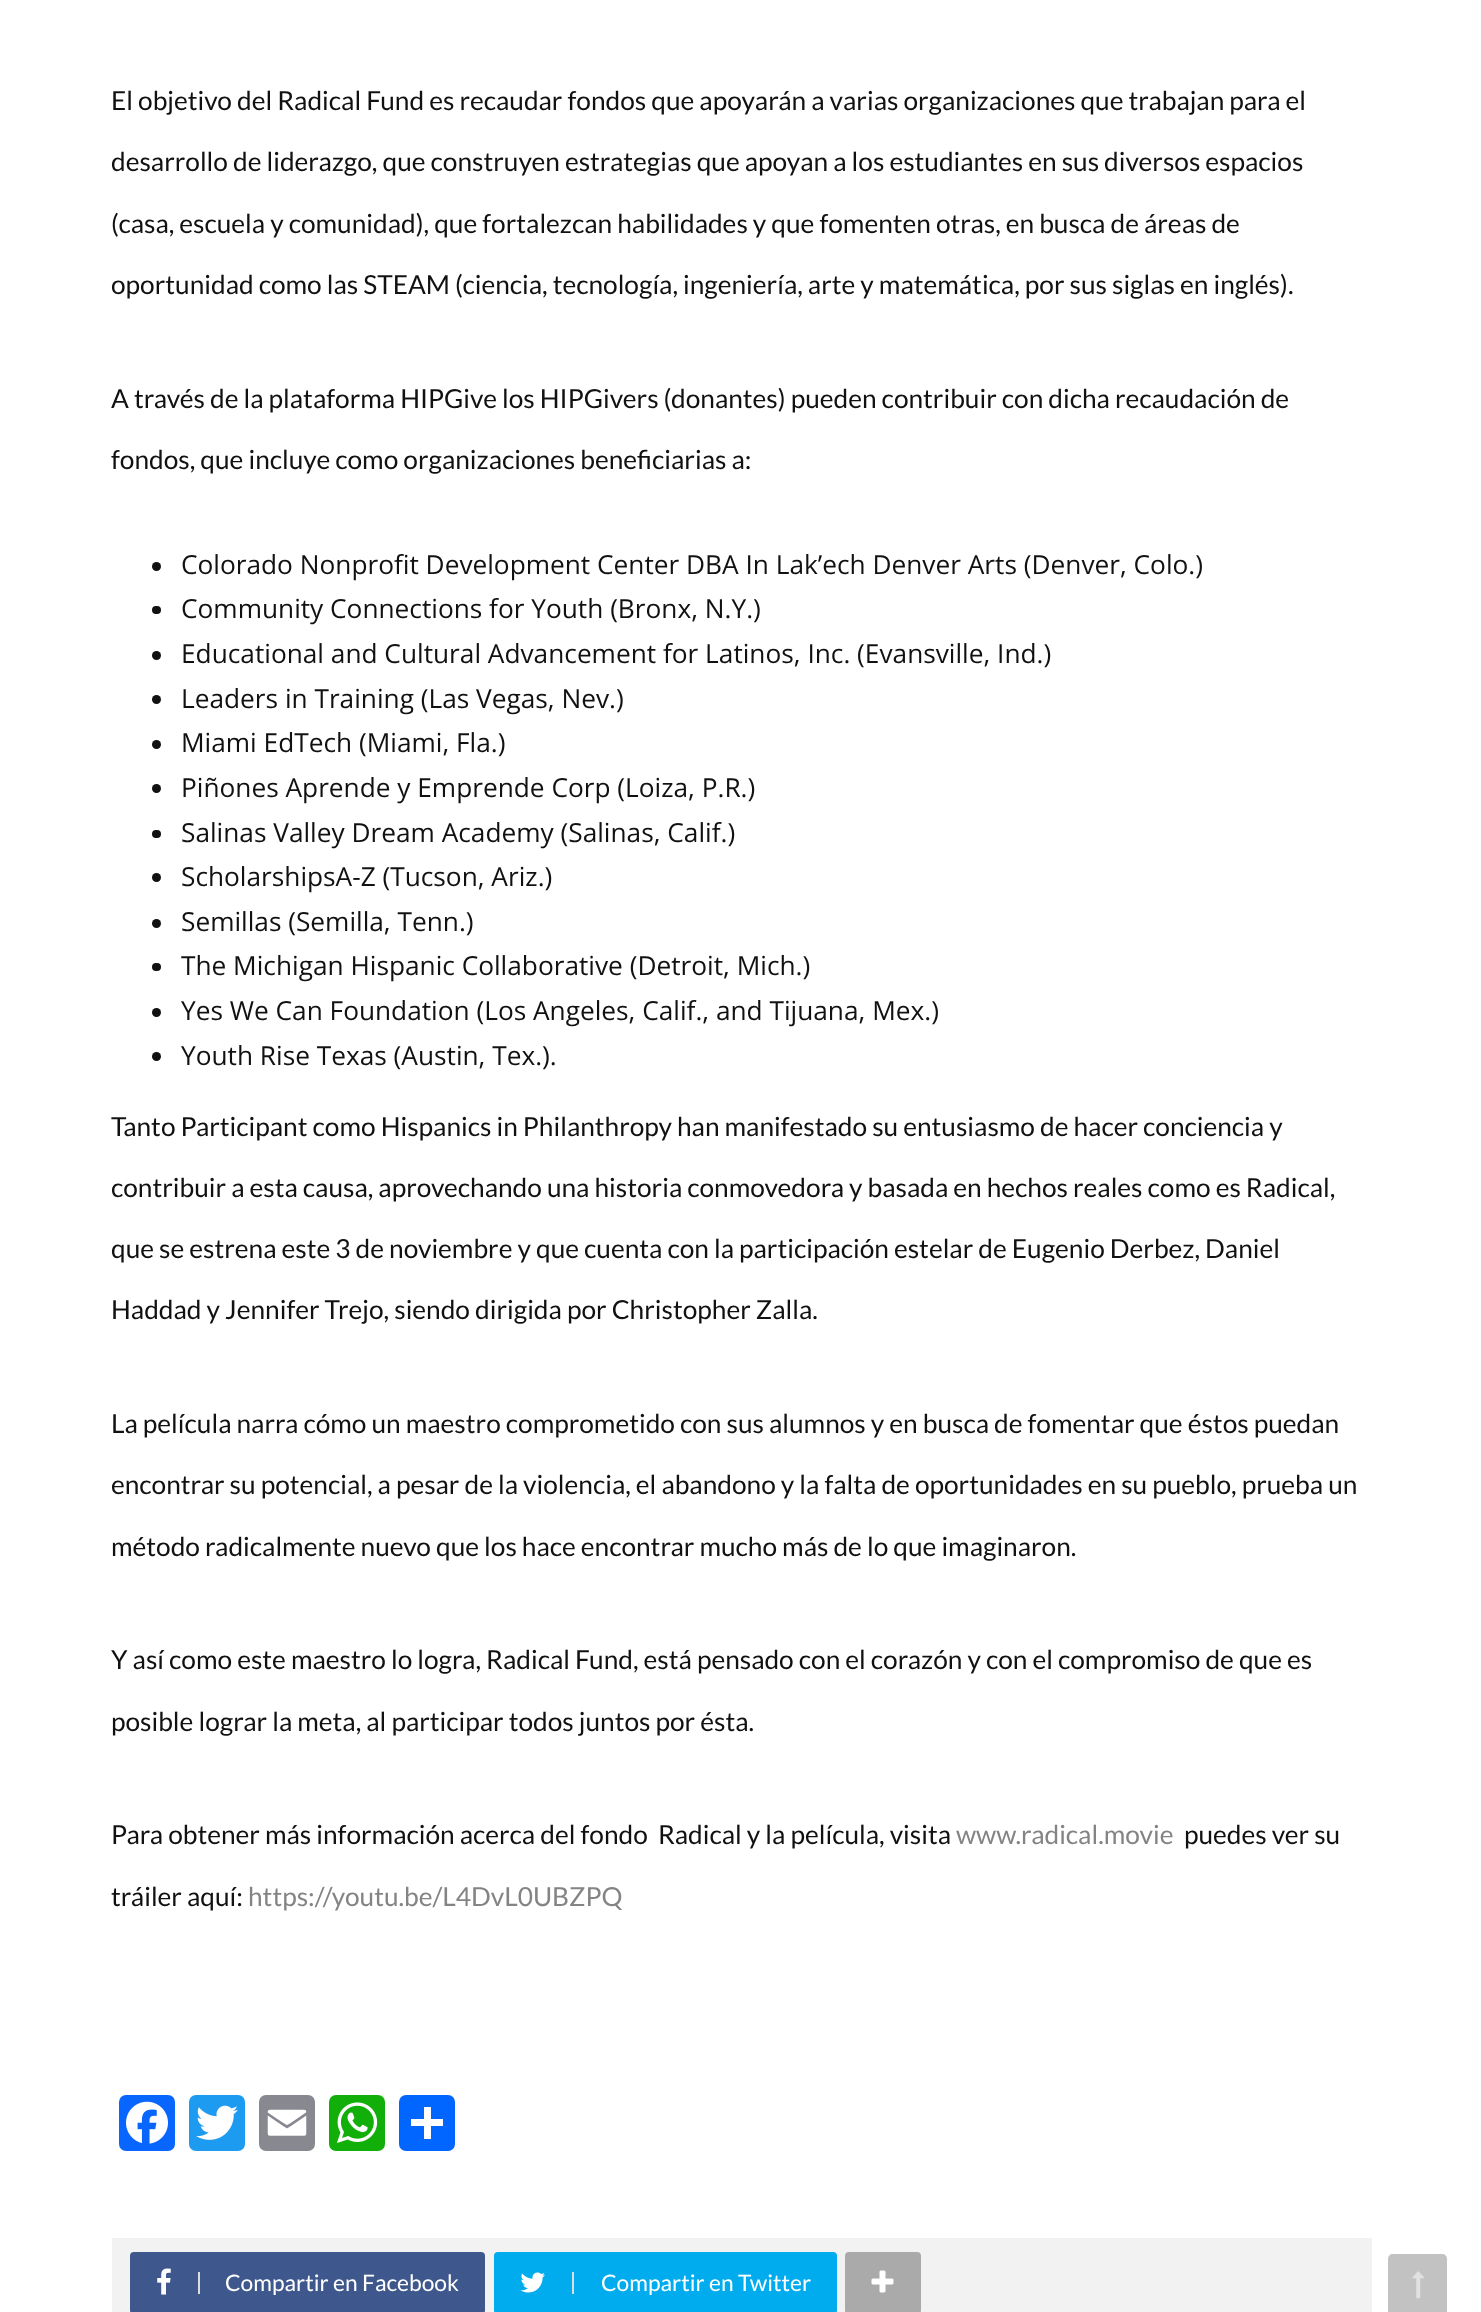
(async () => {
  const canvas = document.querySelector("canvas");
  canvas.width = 1481;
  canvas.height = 2312;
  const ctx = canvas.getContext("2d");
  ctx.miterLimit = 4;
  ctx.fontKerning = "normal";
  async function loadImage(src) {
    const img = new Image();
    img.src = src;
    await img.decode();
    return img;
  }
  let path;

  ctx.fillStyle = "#ffffff";
  ctx.fillRect(0, 0, 1481, 2312);
  ctx.fillStyle = "#111111";
  ctx.beginPath();
  ctx.arc(156.5, 566.5, 4.5, 0, Math.PI * 2);
  ctx.fill();
  ctx.beginPath();
  ctx.roundRect(152, 606, 9, 8, 4);
  ctx.fill();
  ctx.beginPath();
  ctx.arc(156.5, 655.5, 4.5, 0, Math.PI * 2);
  ctx.fill();
  ctx.beginPath();
  ctx.arc(156.5, 699.5, 4.5, 0, Math.PI * 2);
  ctx.fill();
  ctx.beginPath();
  ctx.arc(156.5, 744.5, 4.5, 0, Math.PI * 2);
  ctx.fill();
  ctx.beginPath();
  ctx.arc(156.5, 788.5, 4.5, 0, Math.PI * 2);
  ctx.fill();
  ctx.beginPath();
  ctx.roundRect(152, 830, 9, 8, 4);
  ctx.fill();
  ctx.beginPath();
  ctx.arc(156.5, 877.5, 4.5, 0, Math.PI * 2);
  ctx.fill();
  ctx.beginPath();
  ctx.arc(156.5, 923.5, 4.5, 0, Math.PI * 2);
  ctx.fill();
  ctx.beginPath();
  ctx.roundRect(152, 963, 9, 8, 4);
  ctx.fill();
  ctx.beginPath();
  ctx.arc(156.5, 1012.5, 4.5, 0, Math.PI * 2);
  ctx.fill();
  ctx.beginPath();
  ctx.arc(156.5, 1056.5, 4.5, 0, Math.PI * 2);
  ctx.fill();
  ctx.fillStyle = "#0866ff";
  ctx.beginPath();
  ctx.roundRect(119, 2095, 56, 56, 7);
  ctx.fill();
  ctx.drawImage(await loadImage("img/1.png"), 126, 2101, 42, 43);
  ctx.fillStyle = "#1d9bf0";
  ctx.beginPath();
  ctx.roundRect(189, 2095, 56, 56, 7);
  ctx.fill();
  ctx.drawImage(await loadImage("img/2.png"), 196, 2105, 42, 35);
  ctx.fillStyle = "#888990";
  ctx.beginPath();
  ctx.roundRect(259, 2095, 56, 56, 7);
  ctx.fill();
  ctx.drawImage(await loadImage("img/3.png"), 267, 2109, 40, 27);
  ctx.fillStyle = "#12af0a";
  ctx.beginPath();
  ctx.roundRect(329, 2095, 56, 56, 7);
  ctx.fill();
  ctx.drawImage(await loadImage("img/4.png"), 337, 2102, 41, 41);
  ctx.fillStyle = "#0166ff";
  ctx.beginPath();
  ctx.roundRect(399, 2095, 56, 56, 7);
  ctx.fill();
  for (const [x, y, w, h, color] of [
    [424, 2107, 7, 32, "#ffffff"],
    [411, 2119, 32, 7, "#ffffff"],
    [112, 2238, 1260, 74, "#f2f2f2"],
  ]) {
    ctx.fillStyle = color;
    ctx.fillRect(x, y, w, h);
  }
  ctx.fillStyle = "#3e578c";
  ctx.beginPath();
  ctx.roundRect(130, 2252, 355, 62, 4);
  ctx.fill();
  ctx.drawImage(await loadImage("img/5.png"), 157, 2268, 14, 27);
  ctx.fillStyle = "#dddddd";
  ctx.fillRect(198, 2272, 2, 22);
  ctx.fillStyle = "#00acee";
  ctx.beginPath();
  ctx.roundRect(494, 2252, 343, 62, 4);
  ctx.fill();
  ctx.drawImage(await loadImage("img/6.png"), 520, 2272, 25, 21);
  ctx.fillStyle = "#dddddd";
  ctx.fillRect(572, 2272, 2, 22);
  ctx.fillStyle = "#aaaaaa";
  ctx.beginPath();
  ctx.roundRect(845, 2252, 76, 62, 4);
  ctx.fill();
  ctx.drawImage(await loadImage("img/7.png"), 871, 2270, 23, 23);
  ctx.fillStyle = "#c2c2c2";
  path = new Path2D("M1393 2254H1442C1445 2254 1447 2256 1447 2259V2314H1388V2259C1388 2256 1390 2254 1393 2254Z");
  ctx.fill(path);
  ctx.drawImage(await loadImage("img/8.png"), 1412, 2271, 12, 28);
  ctx.font = "26.25px Lato";
  ctx.fillStyle = "#111111";
  for (const [text, x, y] of [
    ["El objetivo del Radical Fund es recaudar fondos que apoyarán a varias organizaciones que trabajan para el", 111, 110],
    ["desarrollo de liderazgo, que construyen estrategias que apoyan a los estudiantes en sus diversos espacios", 111, 171],
    ["(casa, escuela y comunidad), que fortalezcan habilidades y que fomenten otras, en busca de áreas de", 111, 233],
    ["oportunidad como las STEAM (ciencia, tecnología, ingeniería, arte y matemática, por sus siglas en inglés).", 111, 294],
    ["A través de la plataforma HIPGive los HIPGivers (donantes) pueden contribuir con dicha recaudación de", 111, 408],
    ["fondos, que incluye como organizaciones beneficiarias a:", 111, 469],
  ]) {
    ctx.fillText(text, x, y);
  }
  ctx.font = "26.25px Open Sans";
  for (const [text, x, y] of [
    ["Colorado Nonprofit Development Center DBA In Lak’ech Denver Arts (Denver, Colo.)", 181, 574],
    ["Community Connections for Youth (Bronx, N.Y.)", 181, 618],
    ["Educational and Cultural Advancement for Latinos, Inc. (Evansville, Ind.)", 181, 663],
    ["Leaders in Training (Las Vegas, Nev.)", 181, 708],
    ["Miami EdTech (Miami, Fla.)", 181, 752],
    ["Piñones Aprende y Emprende Corp (Loiza, P.R.)", 181, 797],
    ["Salinas Valley Dream Academy (Salinas, Calif.)", 181, 842],
    ["ScholarshipsA-Z (Tucson, Ariz.)", 181, 886],
    ["Semillas (Semilla, Tenn.)", 181, 931],
    ["The Michigan Hispanic Collaborative (Detroit, Mich.)", 181, 975],
    ["Yes We Can Foundation (Los Angeles, Calif., and Tijuana, Mex.)", 181, 1020],
    ["Youth Rise Texas (Austin, Tex.).", 181, 1065],
  ]) {
    ctx.fillText(text, x, y);
  }
  ctx.font = "26.25px Lato";
  for (const [text, x, y] of [
    ["Tanto Participant como Hispanics in Philanthropy han manifestado su entusiasmo de hacer conciencia y", 111, 1136],
    ["contribuir a esta causa, aprovechando una historia conmovedora y basada en hechos reales como es Radical,", 111, 1197],
    ["que se estrena este 3 de noviembre y que cuenta con la participación estelar de Eugenio Derbez, Daniel", 111, 1258],
    ["Haddad y Jennifer Trejo, siendo dirigida por Christopher Zalla.", 111, 1319],
    ["La película narra cómo un maestro comprometido con sus alumnos y en busca de fomentar que éstos puedan", 111, 1433],
    ["encontrar su potencial, a pesar de la violencia, el abandono y la falta de oportunidades en su pueblo, prueba un", 111, 1494],
    ["método radicalmente nuevo que los hace encontrar mucho más de lo que imaginaron.", 111, 1556],
    ["Y así como este maestro lo logra, Radical Fund, está pensado con el corazón y con el compromiso de que es", 111, 1669],
    ["posible lograr la meta, al participar todos juntos por ésta.", 111, 1731],
    ["Para obtener más información acerca del fondo  Radical y la película, visita", 111, 1844],
  ]) {
    ctx.fillText(text, x, y);
  }
  ctx.fillStyle = "#848484";
  ctx.fillText("www.radical.movie", 956, 1844);
  ctx.fillStyle = "#111111";
  ctx.fillText("puedes ver su", 1184, 1844);
  ctx.fillText("tráiler aquí:", 111, 1906);
  ctx.fillStyle = "#848484";
  ctx.fillText("https://youtu.be/L4DvL0UBZPQ", 248, 1906);
  ctx.font = "22.75px Lato";
  ctx.fillStyle = "#ffffff";
  ctx.fillText("Compartir en Facebook", 225, 2291);
  ctx.fillText("Compartir en Twitter", 601, 2291);
})();
